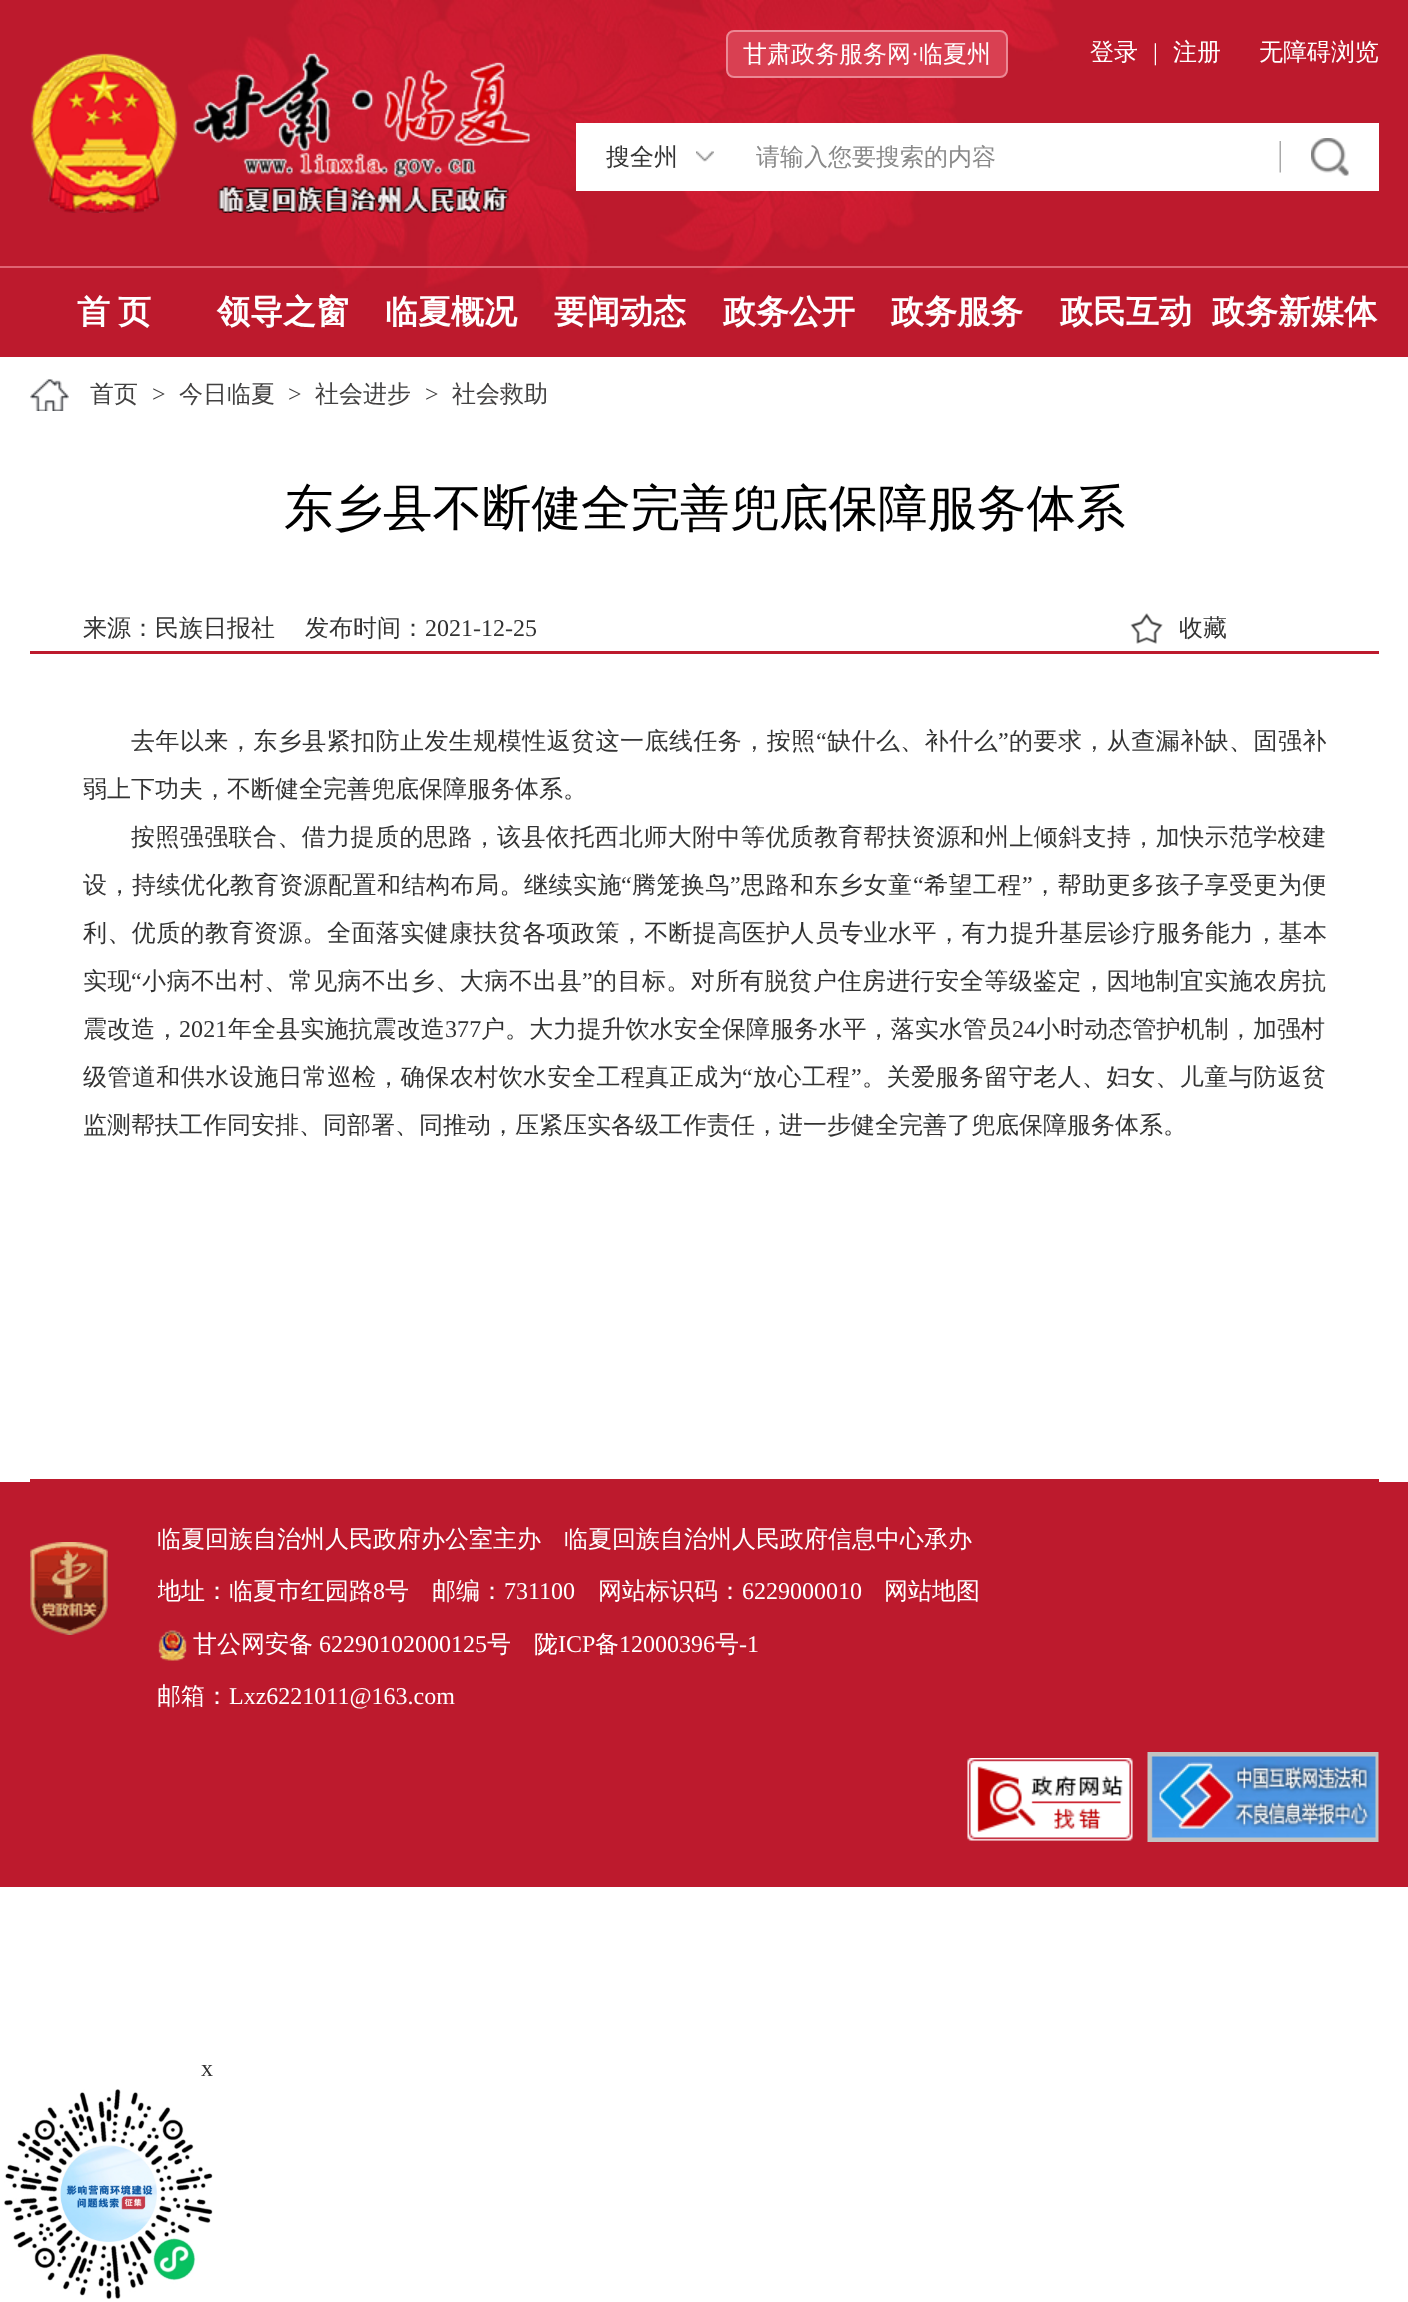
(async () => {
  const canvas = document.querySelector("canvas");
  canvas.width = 1408;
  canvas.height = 2302;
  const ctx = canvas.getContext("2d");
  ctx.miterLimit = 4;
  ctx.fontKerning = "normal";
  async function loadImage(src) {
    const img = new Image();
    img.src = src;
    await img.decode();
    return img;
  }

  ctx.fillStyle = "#ffffff";
  ctx.fillRect(0, 0, 1408, 2302);
  ctx.fillStyle = "#bd1a2d";
  ctx.fillRect(0, 0, 1408, 357);
  ctx.drawImage(await loadImage("img/1.png"), 188, 0, 871, 307);
  ctx.drawImage(await loadImage("img/2.png"), 31, 52, 499, 161);
  ctx.fillStyle = "#d94052";
  ctx.beginPath();
  ctx.roundRect(727, 31, 280, 46, 7);
  ctx.fill();
  ctx.strokeStyle = "#eb8894";
  ctx.lineWidth = 2;
  ctx.stroke();
  ctx.fillStyle = "#ffffff";
  ctx.fillRect(576, 123, 803, 68);
  ctx.drawImage(await loadImage("img/3.png"), 696, 151, 18, 11);
  ctx.drawImage(await loadImage("img/4.png"), 1279, 141, 2, 32);
  ctx.drawImage(await loadImage("img/5.png"), 1311, 138, 38, 38);
  ctx.fillStyle = "#e06372";
  ctx.fillRect(0, 266, 1408, 2);
  ctx.drawImage(await loadImage("img/6.png"), 30, 379, 39, 32);
  ctx.fillStyle = "#bd1a2d";
  ctx.fillRect(30, 651, 1349, 3);
  ctx.drawImage(await loadImage("img/7.png"), 1130, 613, 33, 31);
  ctx.fillRect(30, 1479, 1349, 3);
  ctx.fillRect(0, 1482, 1408, 405);
  ctx.drawImage(await loadImage("img/8.png"), 30, 1542, 78, 93);
  ctx.drawImage(await loadImage("img/9.png"), 158, 1630, 29, 31);
  ctx.drawImage(await loadImage("img/10.png"), 967, 1758, 166, 83);
  ctx.drawImage(await loadImage("img/11.png"), 1147, 1752, 232, 90);
  ctx.drawImage(await loadImage("img/12.png"), 4, 2089, 209, 210);
  ctx.font = "500 24px WenQuanYi Zen Hei";
  ctx.fillStyle = "#ffffff";
  ctx.fillText("甘肃政务服务网", 743, 62);
  ctx.font = "24px Liberation Serif";
  ctx.fillText("·", 911, 62);
  ctx.font = "500 24px WenQuanYi Zen Hei";
  ctx.fillText("临夏州", 919, 62);
  ctx.fillText("登录", 1090, 60);
  ctx.font = "24px Liberation Serif";
  ctx.fillText("|", 1153, 60);
  ctx.font = "500 24px WenQuanYi Zen Hei";
  ctx.fillText("注册", 1173, 60);
  ctx.fillText("无障碍浏览", 1259, 60);
  ctx.fillStyle = "#333333";
  ctx.fillText("搜全州", 606, 165);
  ctx.fillStyle = "#898989";
  ctx.fillText("请输入您要搜索的内容", 756, 165);
  ctx.wordSpacing = "-2px";
  ctx.font = "bold 33px WenQuanYi Zen Hei";
  ctx.fillStyle = "#ffffff";
  ctx.fillText("首 页", 77, 323);
  ctx.wordSpacing = "0px";
  for (const [text, x, y] of [
    ["领导之窗", 217, 323],
    ["临夏概况", 385, 323],
    ["要闻动态", 554, 323],
    ["政务公开", 723, 323],
    ["政务服务", 891, 323],
    ["政民互动", 1060, 323],
    ["政务新媒体", 1212, 323],
  ]) {
    ctx.fillText(text, x, y);
  }
  ctx.font = "500 24px WenQuanYi Zen Hei";
  ctx.fillStyle = "#424141";
  ctx.fillText("首页", 90, 402);
  ctx.font = "24px Liberation Serif";
  ctx.fillText(">", 152, 402);
  ctx.font = "500 24px WenQuanYi Zen Hei";
  ctx.fillText("今日临夏", 179, 402);
  ctx.font = "24px Liberation Serif";
  ctx.fillText(">", 288, 402);
  ctx.font = "500 24px WenQuanYi Zen Hei";
  ctx.fillText("社会进步", 315, 402);
  ctx.font = "24px Liberation Serif";
  ctx.fillText(">", 425, 402);
  ctx.font = "500 24px WenQuanYi Zen Hei";
  ctx.fillText("社会救助", 452, 402);
  ctx.font = "500 49.5px WenQuanYi Zen Hei";
  ctx.fillStyle = "#000000";
  ctx.fillText("东乡县不断健全完善兜底保障服务体系", 284, 525);
  ctx.font = "500 24px WenQuanYi Zen Hei";
  ctx.fillStyle = "#333333";
  ctx.fillText("来源：民族日报社", 83, 636);
  ctx.fillText("发布时间：", 305, 636);
  ctx.font = "24px Liberation Serif";
  ctx.fillText("2021-12-25", 425, 636);
  ctx.font = "500 24px WenQuanYi Zen Hei";
  ctx.fillText("收藏", 1179, 636);
  ctx.letterSpacing = "0.45px";
  ctx.fillText("去年以来，东乡县紧扣防止发生规模性返贫这一底线任务，按照", 131, 749);
  ctx.font = "24px Liberation Serif";
  ctx.fillText("“", 816, 749);
  ctx.font = "500 24px WenQuanYi Zen Hei";
  ctx.fillText("缺什么、补什么", 827, 749);
  ctx.font = "24px Liberation Serif";
  ctx.fillText("”", 998, 749);
  ctx.font = "500 24px WenQuanYi Zen Hei";
  ctx.fillText("的要求，从查漏补缺、固强补", 1009, 749);
  ctx.letterSpacing = "0px";
  ctx.fillText("弱上下功夫，不断健全完善兜底保障服务体系。", 83, 797);
  ctx.letterSpacing = "0.4px";
  ctx.fillText("按照强强联合、借力提质的思路，该县依托西北师大附中等优质教育帮扶资源和州上倾斜支持，加快示范学校建", 131, 845);
  ctx.letterSpacing = "0.5px";
  ctx.fillText("设，持续优化教育资源配置和结构布局。继续实施", 83, 893);
  ctx.font = "24px Liberation Serif";
  ctx.fillText("“", 621, 893);
  ctx.font = "500 24px WenQuanYi Zen Hei";
  ctx.fillText("腾笼换鸟", 632, 893);
  ctx.font = "24px Liberation Serif";
  ctx.fillText("”", 730, 893);
  ctx.font = "500 24px WenQuanYi Zen Hei";
  ctx.fillText("思路和东乡女童", 741, 893);
  ctx.font = "24px Liberation Serif";
  ctx.fillText("“", 913, 893);
  ctx.font = "500 24px WenQuanYi Zen Hei";
  ctx.fillText("希望工程", 924, 893);
  ctx.font = "24px Liberation Serif";
  ctx.fillText("”", 1022, 893);
  ctx.font = "500 24px WenQuanYi Zen Hei";
  ctx.fillText("，帮助更多孩子享受更为便", 1033, 893);
  ctx.letterSpacing = "0.4px";
  ctx.fillText("利、优质的教育资源。全面落实健康扶贫各项政策，不断提高医护人员专业水平，有力提升基层诊疗服务能力，基本", 83, 941);
  ctx.letterSpacing = "0.45px";
  ctx.fillText("实现", 83, 989);
  ctx.font = "24px Liberation Serif";
  ctx.fillText("“", 131, 989);
  ctx.font = "500 24px WenQuanYi Zen Hei";
  ctx.fillText("小病不出村、常见病不出乡、大病不出县", 142, 989);
  ctx.font = "24px Liberation Serif";
  ctx.fillText("”", 582, 989);
  ctx.font = "500 24px WenQuanYi Zen Hei";
  ctx.fillText("的目标。对所有脱贫户住房进行安全等级鉴定，因地制宜实施农房抗", 593, 989);
  ctx.letterSpacing = "0.1px";
  ctx.fillText("震改造，", 83, 1037);
  ctx.font = "24px Liberation Serif";
  ctx.fillText("2021", 179, 1037);
  ctx.font = "500 24px WenQuanYi Zen Hei";
  ctx.fillText("年全县实施抗震改造", 228, 1037);
  ctx.font = "24px Liberation Serif";
  ctx.fillText("377", 445, 1037);
  ctx.font = "500 24px WenQuanYi Zen Hei";
  ctx.fillText("户。大力提升饮水安全保障服务水平，落实水管员", 481, 1037);
  ctx.font = "24px Liberation Serif";
  ctx.fillText("24", 1012, 1037);
  ctx.font = "500 24px WenQuanYi Zen Hei";
  ctx.fillText("小时动态管护机制，加强村", 1036, 1037);
  ctx.letterSpacing = "0.45px";
  ctx.fillText("级管道和供水设施日常巡检，确保农村饮水安全工程真正成为", 83, 1085);
  ctx.font = "24px Liberation Serif";
  ctx.fillText("“", 742, 1085);
  ctx.font = "500 24px WenQuanYi Zen Hei";
  ctx.fillText("放心工程", 753, 1085);
  ctx.font = "24px Liberation Serif";
  ctx.fillText("”", 851, 1085);
  ctx.font = "500 24px WenQuanYi Zen Hei";
  ctx.fillText("。关爱服务留守老人、妇女、儿童与防返贫", 862, 1085);
  ctx.letterSpacing = "0px";
  ctx.fillText("监测帮扶工作同安排、同部署、同推动，压紧压实各级工作责任，进一步健全完善了兜底保障服务体系。", 83, 1133);
  ctx.fillStyle = "#ffffff";
  ctx.fillText("临夏回族自治州人民政府办公室主办", 157, 1547);
  ctx.fillText("临夏回族自治州人民政府信息中心承办", 564, 1547);
  ctx.save();
  ctx.beginPath();
  ctx.rect(158, 1565, 844, 52);
  ctx.clip();
  ctx.fillText("地址：临夏市红园路", 157, 1599);
  ctx.restore();
  ctx.font = "24px Liberation Serif";
  ctx.fillText("8", 373, 1599);
  ctx.font = "500 24px WenQuanYi Zen Hei";
  ctx.fillText("号", 385, 1599);
  ctx.fillText("邮编：", 432, 1599);
  ctx.font = "24px Liberation Serif";
  ctx.fillText("731100", 504, 1599);
  ctx.font = "500 24px WenQuanYi Zen Hei";
  ctx.fillText("网站标识码：", 598, 1599);
  ctx.font = "24px Liberation Serif";
  ctx.fillText("6229000010", 742, 1599);
  ctx.font = "500 24px WenQuanYi Zen Hei";
  ctx.fillText("网站地图", 884, 1599);
  ctx.fillText("甘公网安备", 193, 1652);
  ctx.font = "24px Liberation Serif";
  ctx.fillText("62290102000125", 319, 1652);
  ctx.font = "500 24px WenQuanYi Zen Hei";
  ctx.fillText("号", 487, 1652);
  ctx.fillText("陇", 534, 1652);
  ctx.font = "24px Liberation Serif";
  ctx.fillText("ICP", 558, 1652);
  ctx.font = "500 24px WenQuanYi Zen Hei";
  ctx.fillText("备", 595, 1652);
  ctx.font = "24px Liberation Serif";
  ctx.fillText("12000396", 619, 1652);
  ctx.font = "500 24px WenQuanYi Zen Hei";
  ctx.fillText("号", 715, 1652);
  ctx.font = "24px Liberation Serif";
  ctx.fillText("-1", 739, 1652);
  ctx.font = "500 24px WenQuanYi Zen Hei";
  ctx.fillText("邮箱：", 157, 1704);
  ctx.font = "24px Liberation Serif";
  ctx.fillText("Lxz6221011@163.com", 229, 1704);
  ctx.fillStyle = "#333333";
  ctx.fillText("x", 201, 2076);
})();
